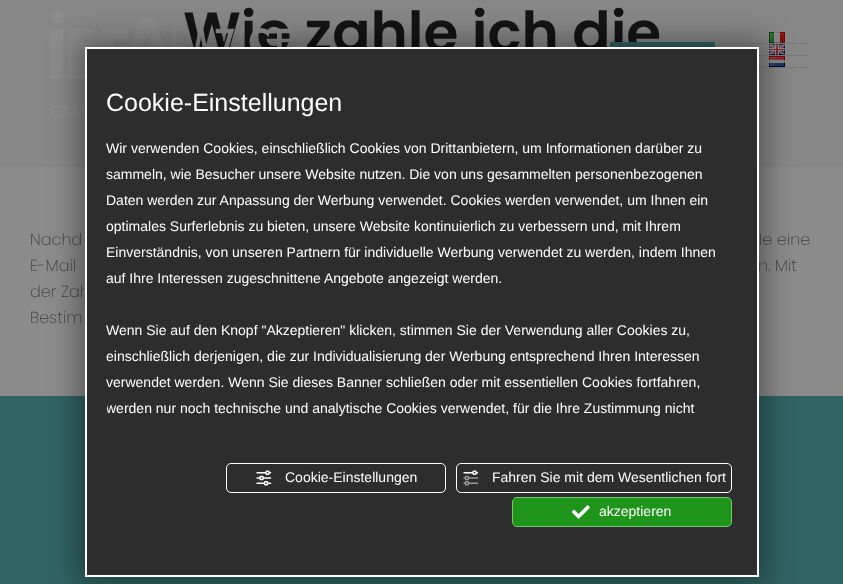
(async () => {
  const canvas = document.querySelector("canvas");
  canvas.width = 843;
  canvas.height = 584;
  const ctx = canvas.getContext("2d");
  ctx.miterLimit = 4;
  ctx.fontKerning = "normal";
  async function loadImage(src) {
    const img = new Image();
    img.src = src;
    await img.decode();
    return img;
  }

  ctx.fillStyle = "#8c8c8c";
  ctx.fillRect(0, 0, 843, 584);
  ctx.fillStyle = "#878787";
  ctx.fillRect(0, 0, 843, 167);
  ctx.fillStyle = "#7a7a7a";
  ctx.fillRect(745, 43, 64, 1);
  ctx.drawImage(await loadImage("img/2.png"), 769, 32, 16, 11);
  ctx.fillRect(759, 55, 50, 1);
  ctx.drawImage(await loadImage("img/3.png"), 769, 44, 16, 11);
  ctx.fillRect(759, 67, 50, 1);
  ctx.drawImage(await loadImage("img/4.png"), 769, 56, 16, 11);
  ctx.fillStyle = "#306462";
  ctx.fillRect(0, 396, 843, 188);
  ctx.font = "600 56.5px Poppins";
  ctx.fillStyle = "#141414";
  ctx.fillText("Wie zahle ich die", 183, 52);
  ctx.drawImage(await loadImage("img/1.png"), 50, 10, 242, 107);
  ctx.fillStyle = "#306462";
  ctx.fillRect(610, 42, 105, 5);
  ctx.font = "200 16px Poppins";
  ctx.fillStyle = "#3e3e3e";
  for (const [text, x, y] of [
    ["Nachd", 30, 245],
    ["le eine", 759, 245],
    ["E-Mail", 30, 271],
    ["n. Mit", 758, 271],
    ["der Zah", 30, 297],
    ["Bestim", 30, 323],
  ]) {
    ctx.fillText(text, x, y);
  }
  ctx.fillStyle = "rgba(0, 0, 0, 0.38)";
  ctx.filter = "blur(14.5px)";
  ctx.beginPath();
  ctx.rect(78, 40, 688, 544);
  ctx.fill();
  ctx.filter = "none";
  ctx.fillStyle = "#2d2d2d";
  ctx.beginPath();
  ctx.rect(86, 48, 672, 528);
  ctx.fill();
  ctx.strokeStyle = "#ffffff";
  ctx.lineWidth = 2;
  ctx.stroke();
  ctx.font = "25px Liberation Sans";
  ctx.fillStyle = "#ffffff";
  ctx.fillText("Cookie-Einstellungen", 106, 111);
  ctx.font = "14px Liberation Sans";
  for (const [text, x, y] of [
    ["Wir verwenden Cookies, einschließlich Cookies von Drittanbietern, um Informationen darüber zu", 106, 153],
    ["sammeln, wie Besucher unsere Website nutzen. Die von uns gesammelten personenbezogenen", 106, 179],
    ["Daten werden zur Anpassung der Werbung verwendet. Cookies werden verwendet, um Ihnen ein", 106, 205],
    ["optimales Surferlebnis zu bieten, unsere Website kontinuierlich zu verbessern und, mit Ihrem", 106, 231],
    ["Einverständnis, von unseren Partnern für individuelle Werbung verwendet zu werden, indem Ihnen", 106, 257],
    ["auf Ihre Interessen zugeschnittene Angebote angezeigt werden.", 106, 283],
    ["Wenn Sie auf den Knopf \"Akzeptieren\" klicken, stimmen Sie der Verwendung aller Cookies zu,", 106, 335],
    ["einschließlich derjenigen, die zur Individualisierung der Werbung entsprechend Ihren Interessen", 106, 361],
    ["verwendet werden. Wenn Sie dieses Banner schließen oder mit essentiellen Cookies fortfahren,", 106, 387],
  ]) {
    ctx.fillText(text, x, y);
  }
  ctx.save();
  ctx.beginPath();
  ctx.rect(107, 135, 630, 300);
  ctx.clip();
  ctx.fillText("werden nur noch technische und analytische Cookies verwendet, für die Ihre Zustimmung nicht", 106, 413);
  ctx.restore();
  ctx.beginPath();
  ctx.roundRect(226.5, 463.5, 219, 29, 4.5);
  ctx.lineWidth = 1;
  ctx.stroke();
  ctx.drawImage(await loadImage("img/5.png"), 256, 470, 16, 16);
  ctx.fillText("Cookie-Einstellungen", 285, 482);
  ctx.beginPath();
  ctx.roundRect(456.5, 463.5, 275, 29, 4.5);
  ctx.stroke();
  ctx.drawImage(await loadImage("img/6.png"), 463, 470, 16, 16);
  ctx.fillText("Fahren Sie mit dem Wesentlichen fort", 492, 482);
  ctx.fillStyle = "#1e941a";
  ctx.beginPath();
  ctx.roundRect(512.5, 497.5, 219, 29, 4.5);
  ctx.fill();
  ctx.strokeStyle = "#6cca69";
  ctx.stroke();
  ctx.drawImage(await loadImage("img/7.png"), 572, 505, 18, 14);
  ctx.fillStyle = "#ffffff";
  ctx.fillText("akzeptieren", 599, 516);
})();
